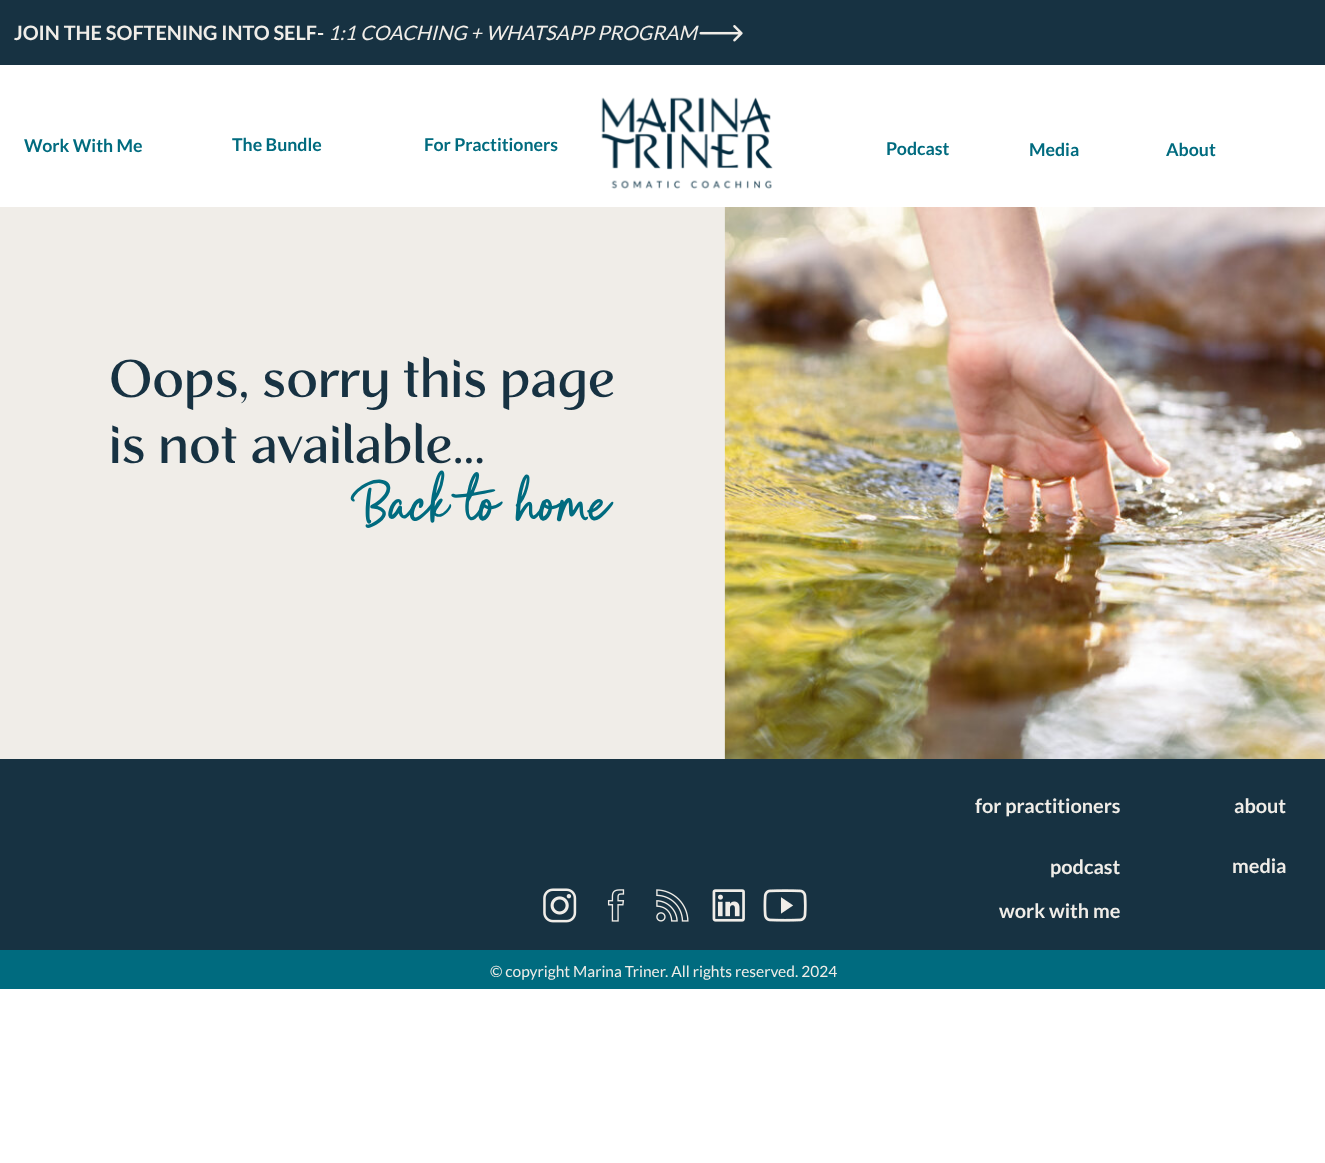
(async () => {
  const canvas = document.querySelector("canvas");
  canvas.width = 1325;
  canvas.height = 1163;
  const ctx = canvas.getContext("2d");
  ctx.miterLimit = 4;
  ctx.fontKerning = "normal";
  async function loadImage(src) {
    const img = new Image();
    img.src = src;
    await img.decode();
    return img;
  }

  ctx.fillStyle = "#ffffff";
  ctx.fillRect(0, 0, 1325, 1163);
  ctx.fillStyle = "#173242";
  ctx.fillRect(0, 0, 1325, 65);
  ctx.drawImage(await loadImage("img/1.png"), 699, 25, 44, 17);
  ctx.drawImage(await loadImage("img/2.png"), 601, 97, 172, 92);
  ctx.fillStyle = "#f0ede8";
  ctx.fillRect(0, 207, 725, 552);
  ctx.drawImage(await loadImage("img/3.png"), 724, 207, 601, 552);
  ctx.fillStyle = "#173242";
  ctx.fillRect(0, 759, 1325, 191);
  ctx.drawImage(await loadImage("img/4.png"), 543, 888, 34, 35);
  ctx.drawImage(await loadImage("img/5.png"), 607, 889, 18, 33);
  ctx.drawImage(await loadImage("img/6.png"), 656, 889, 33, 33);
  ctx.drawImage(await loadImage("img/7.png"), 712, 889, 33, 33);
  ctx.drawImage(await loadImage("img/8.png"), 763, 889, 44, 33);
  ctx.fillStyle = "#006b7f";
  ctx.fillRect(0, 950, 1325, 39);
  ctx.font = "bold 19.9px Lato";
  ctx.fillStyle = "#f0ede8";
  ctx.fillText("JOIN THE SOFTENING INTO SELF-", 14, 40);
  ctx.font = "italic 19.9px Lato";
  ctx.fillText("1:1 COACHING + WHATSAPP PROGRAM", 328, 40);
  ctx.font = "bold 17.75px Lato";
  ctx.fillStyle = "#006b7f";
  for (const [text, x, y] of [
    ["Work With Me", 24, 152],
    ["The Bundle", 232, 151],
    ["For Practitioners", 424, 151],
    ["Podcast", 886, 155],
    ["Media", 1029, 156],
    ["About", 1166, 156],
  ]) {
    ctx.fillText(text, x, y);
  }
  ctx.font = "500 55.25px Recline";
  ctx.fillStyle = "#173242";
  ctx.fillText("Oops, sorry this page", 109, 397);
  ctx.fillText("is not available...", 109, 463);
  ctx.font = "88.5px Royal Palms";
  ctx.fillStyle = "#006b7f";
  ctx.fillText("Back to home", 351, 519);
  ctx.font = "bold 19.9px Lato";
  ctx.fillStyle = "#f0ede8";
  for (const [text, x, y] of [
    ["for practitioners", 975, 813],
    ["about", 1234, 813],
    ["podcast", 1050, 874],
    ["media", 1232, 873],
    ["work with me", 999, 918],
  ]) {
    ctx.fillText(text, x, y);
  }
  ctx.font = "15.5px Lato";
  ctx.fillText("© copyright Marina Triner. All rights reserved. 2024", 490, 977);
})();
